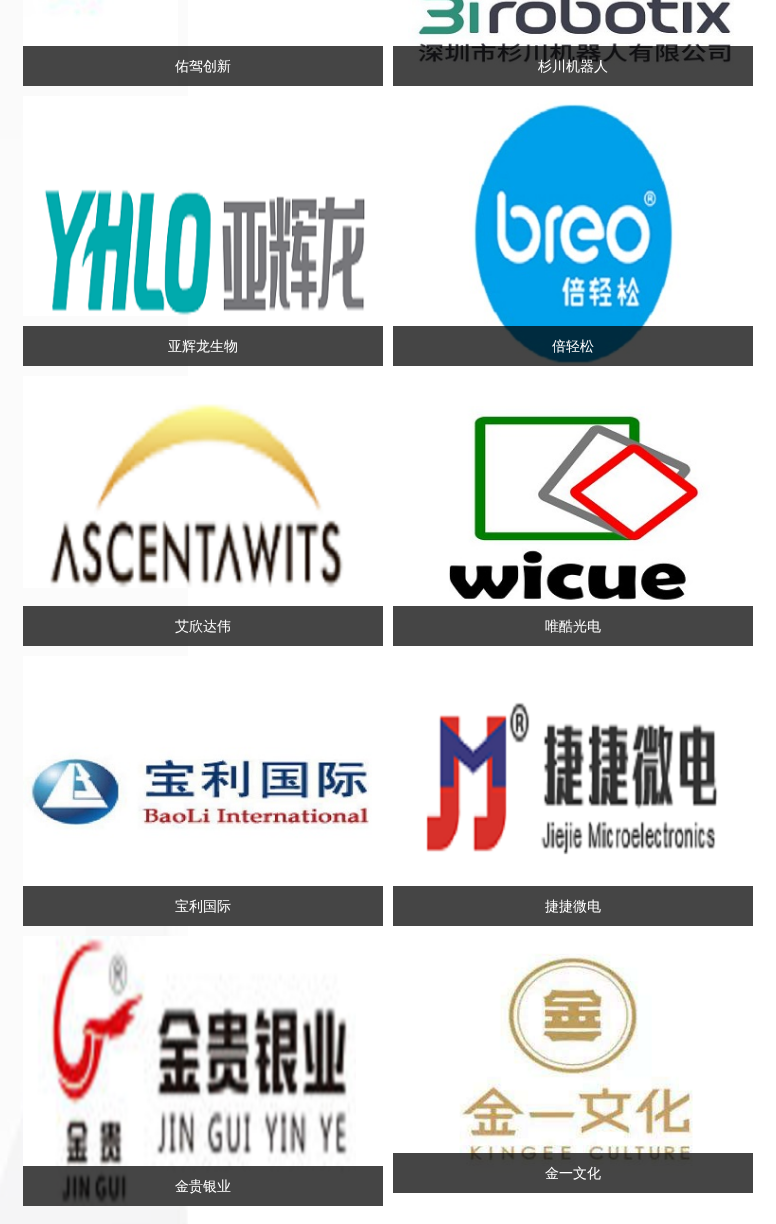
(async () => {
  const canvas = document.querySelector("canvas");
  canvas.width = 776;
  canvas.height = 1224;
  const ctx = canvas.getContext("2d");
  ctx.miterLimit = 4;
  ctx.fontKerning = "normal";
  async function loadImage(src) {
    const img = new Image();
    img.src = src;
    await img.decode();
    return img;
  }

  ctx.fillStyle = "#ffffff";
  ctx.fillRect(0, 0, 776, 1224);
  ctx.drawImage(await loadImage("img/1.png"), 0, 0, 188, 1224);
  ctx.drawImage(await loadImage("img/2.png"), 23, 0, 155, 86);
  ctx.fillStyle = "rgba(0, 0, 0, 0.73)";
  ctx.fillRect(23, 46, 360, 40);
  ctx.drawImage(await loadImage("img/3.png"), 408, 0, 326, 66);
  ctx.fillRect(393, 46, 360, 40);
  ctx.drawImage(await loadImage("img/4.png"), 23, 96, 342, 220);
  ctx.fillRect(23, 326, 360, 40);
  ctx.drawImage(await loadImage("img/5.png"), 469, 100, 212, 266);
  ctx.fillRect(393, 326, 360, 40);
  ctx.drawImage(await loadImage("img/6.png"), 23, 376, 321, 212);
  ctx.fillRect(23, 606, 360, 40);
  ctx.drawImage(await loadImage("img/7.png"), 449, 406, 261, 194);
  ctx.fillStyle = "#454545";
  ctx.fillRect(393, 606, 360, 40);
  ctx.drawImage(await loadImage("img/8.png"), 23, 656, 349, 230);
  ctx.fillRect(23, 886, 360, 40);
  ctx.drawImage(await loadImage("img/9.png"), 426, 702, 292, 153);
  ctx.fillRect(393, 886, 360, 40);
  ctx.drawImage(await loadImage("img/10.png"), 459, 953, 234, 220);
  ctx.fillStyle = "rgba(0, 0, 0, 0.73)";
  ctx.fillRect(393, 1153, 360, 40);
  ctx.drawImage(await loadImage("img/11.png"), 23, 936, 333, 270);
  ctx.fillRect(23, 1166, 360, 40);
  ctx.font = "500 14px WenQuanYi Zen Hei";
  ctx.fillStyle = "#ffffff";
  for (const [text, x, y] of [
    ["佑驾创新", 175, 71],
    ["杉川机器人", 538, 71],
    ["亚辉龙生物", 168, 351],
    ["倍轻松", 552, 351],
    ["艾欣达伟", 175, 631],
    ["唯酷光电", 545, 631],
    ["宝利国际", 175, 911],
    ["捷捷微电", 545, 911],
    ["金一文化", 545, 1178],
    ["金贵银业", 175, 1191],
  ]) {
    ctx.fillText(text, x, y);
  }
})();
